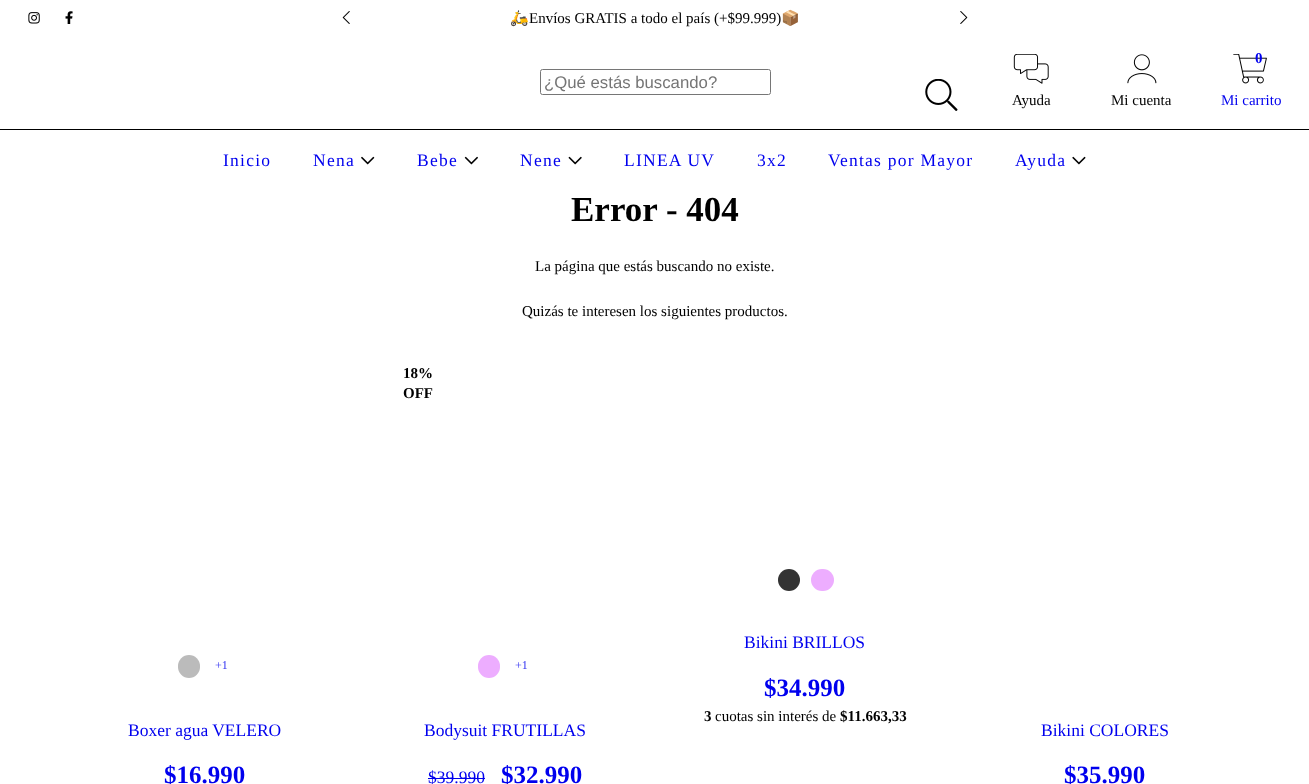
(async () => {
  const canvas = document.querySelector("canvas");
  canvas.width = 1309;
  canvas.height = 784;
  const ctx = canvas.getContext("2d");
  ctx.miterLimit = 4;
  ctx.fontKerning = "normal";
  async function loadImage(src) {
    const img = new Image();
    img.src = src;
    await img.decode();
    return img;
  }

  ctx.fillStyle = "#ffffff";
  ctx.fillRect(0, 0, 1309, 784);
  ctx.drawImage(await loadImage("img/1.png"), 28, 12, 12, 12);
  ctx.drawImage(await loadImage("img/2.png"), 65, 11, 8, 13);
  ctx.drawImage(await loadImage("img/3.png"), 342, 11, 8, 13);
  ctx.drawImage(await loadImage("img/4.png"), 960, 11, 8, 13);
  ctx.beginPath();
  ctx.roundRect(540.5, 69.5, 230, 25, 2);
  ctx.strokeStyle = "#767676";
  ctx.stroke();
  ctx.drawImage(await loadImage("img/5.png"), 925, 79, 33, 32);
  ctx.drawImage(await loadImage("img/6.png"), 1013, 54, 36, 30);
  ctx.drawImage(await loadImage("img/7.png"), 1127, 54, 30, 30);
  ctx.drawImage(await loadImage("img/8.png"), 1233, 54, 34, 30);
  ctx.fillStyle = "#000000";
  ctx.fillRect(0, 129, 1309, 1);
  ctx.drawImage(await loadImage("img/9.png"), 361, 156, 14, 9);
  ctx.drawImage(await loadImage("img/10.png"), 464, 156, 14, 9);
  ctx.drawImage(await loadImage("img/11.png"), 568, 156, 14, 9);
  ctx.drawImage(await loadImage("img/12.png"), 1072, 156, 14, 9);
  ctx.fillStyle = "#bbbbbb";
  ctx.beginPath();
  ctx.roundRect(178, 655, 22, 23, 11);
  ctx.fill();
  ctx.fillStyle = "#edadff";
  ctx.beginPath();
  ctx.roundRect(478, 655, 22, 23, 11);
  ctx.fill();
  ctx.fillStyle = "#0000ee";
  ctx.fillRect(428, 778, 57, 1);
  ctx.fillStyle = "#333333";
  ctx.beginPath();
  ctx.arc(789, 580, 11, 0, Math.PI * 2);
  ctx.fill();
  ctx.fillStyle = "#edadff";
  ctx.beginPath();
  ctx.roundRect(811, 569, 23, 22, 11);
  ctx.fill();
  ctx.font = "15px Noto Color Emoji";
  ctx.fillStyle = "#000000";
  ctx.fillText("🛵", 510, 23);
  ctx.font = "15px Liberation Serif";
  ctx.fillText("Envíos GRATIS a todo el país (+$99.999)", 529, 23);
  ctx.font = "15px Noto Color Emoji";
  ctx.fillText("📦", 781, 23);
  ctx.font = "16.75px Liberation Sans";
  ctx.fillStyle = "#757575";
  ctx.fillText("¿Qué estás buscando?", 544, 88);
  ctx.font = "15px Liberation Serif";
  ctx.fillStyle = "#000000";
  ctx.fillText("Ayuda", 1012, 105);
  ctx.fillText("Mi cuenta", 1111, 105);
  ctx.font = "bold 15px Liberation Serif";
  ctx.fillStyle = "#0000ee";
  ctx.fillText("0", 1255, 63);
  ctx.font = "15px Liberation Serif";
  ctx.fillText("Mi carrito", 1221, 105);
  ctx.letterSpacing = "1.25px";
  ctx.font = "17.5px Liberation Serif";
  for (const [text, x, y] of [
    ["Inicio", 223, 166],
    ["Nena", 313, 166],
    ["Bebe", 417, 166],
    ["Nene", 520, 166],
    ["LINEA UV", 624, 166],
    ["3x2", 757, 166],
    ["Ventas por Mayor", 828, 166],
    ["Ayuda", 1015, 166],
  ]) {
    ctx.fillText(text, x, y);
  }
  ctx.letterSpacing = "0px";
  ctx.font = "bold 35px Liberation Serif";
  ctx.fillStyle = "#000000";
  ctx.fillText("Error - 404", 571, 221);
  ctx.font = "15px Liberation Serif";
  ctx.fillText("La página que estás buscando no existe.", 535, 271);
  ctx.fillText("Quizás te interesen los siguientes productos.", 522, 316);
  ctx.font = "12px Liberation Serif";
  ctx.fillStyle = "#3333f1";
  ctx.fillText("+1", 215, 669);
  ctx.font = "17.5px Liberation Serif";
  ctx.fillStyle = "#0000ee";
  ctx.fillText("Boxer agua VELERO", 128, 736);
  ctx.font = "bold 25px Liberation Serif";
  ctx.fillText("$16.990", 164, 783);
  ctx.font = "bold 15px Liberation Serif";
  ctx.fillStyle = "#000000";
  ctx.fillText("18%", 403, 378);
  ctx.fillText("OFF", 403, 398);
  ctx.font = "12px Liberation Serif";
  ctx.fillStyle = "#3333f1";
  ctx.fillText("+1", 515, 669);
  ctx.font = "17.5px Liberation Serif";
  ctx.fillStyle = "#0000ee";
  ctx.fillText("Bodysuit FRUTILLAS", 424, 736);
  ctx.fillText("$39.990", 428, 783);
  ctx.font = "bold 25px Liberation Serif";
  ctx.fillText("$32.990", 501, 783);
  ctx.font = "17.5px Liberation Serif";
  ctx.fillText("Bikini BRILLOS", 744, 648);
  ctx.font = "bold 25px Liberation Serif";
  ctx.fillText("$34.990", 764, 696);
  ctx.font = "bold 15px Liberation Serif";
  ctx.fillStyle = "#000000";
  ctx.fillText("3", 704, 721);
  ctx.font = "15px Liberation Serif";
  ctx.fillText("cuotas sin interés de", 715, 721);
  ctx.font = "bold 15px Liberation Serif";
  ctx.fillText("$11.663,33", 840, 721);
  ctx.font = "17.5px Liberation Serif";
  ctx.fillStyle = "#0000ee";
  ctx.fillText("Bikini COLORES", 1041, 736);
  ctx.font = "bold 25px Liberation Serif";
  ctx.fillText("$35.990", 1064, 783);
})();
